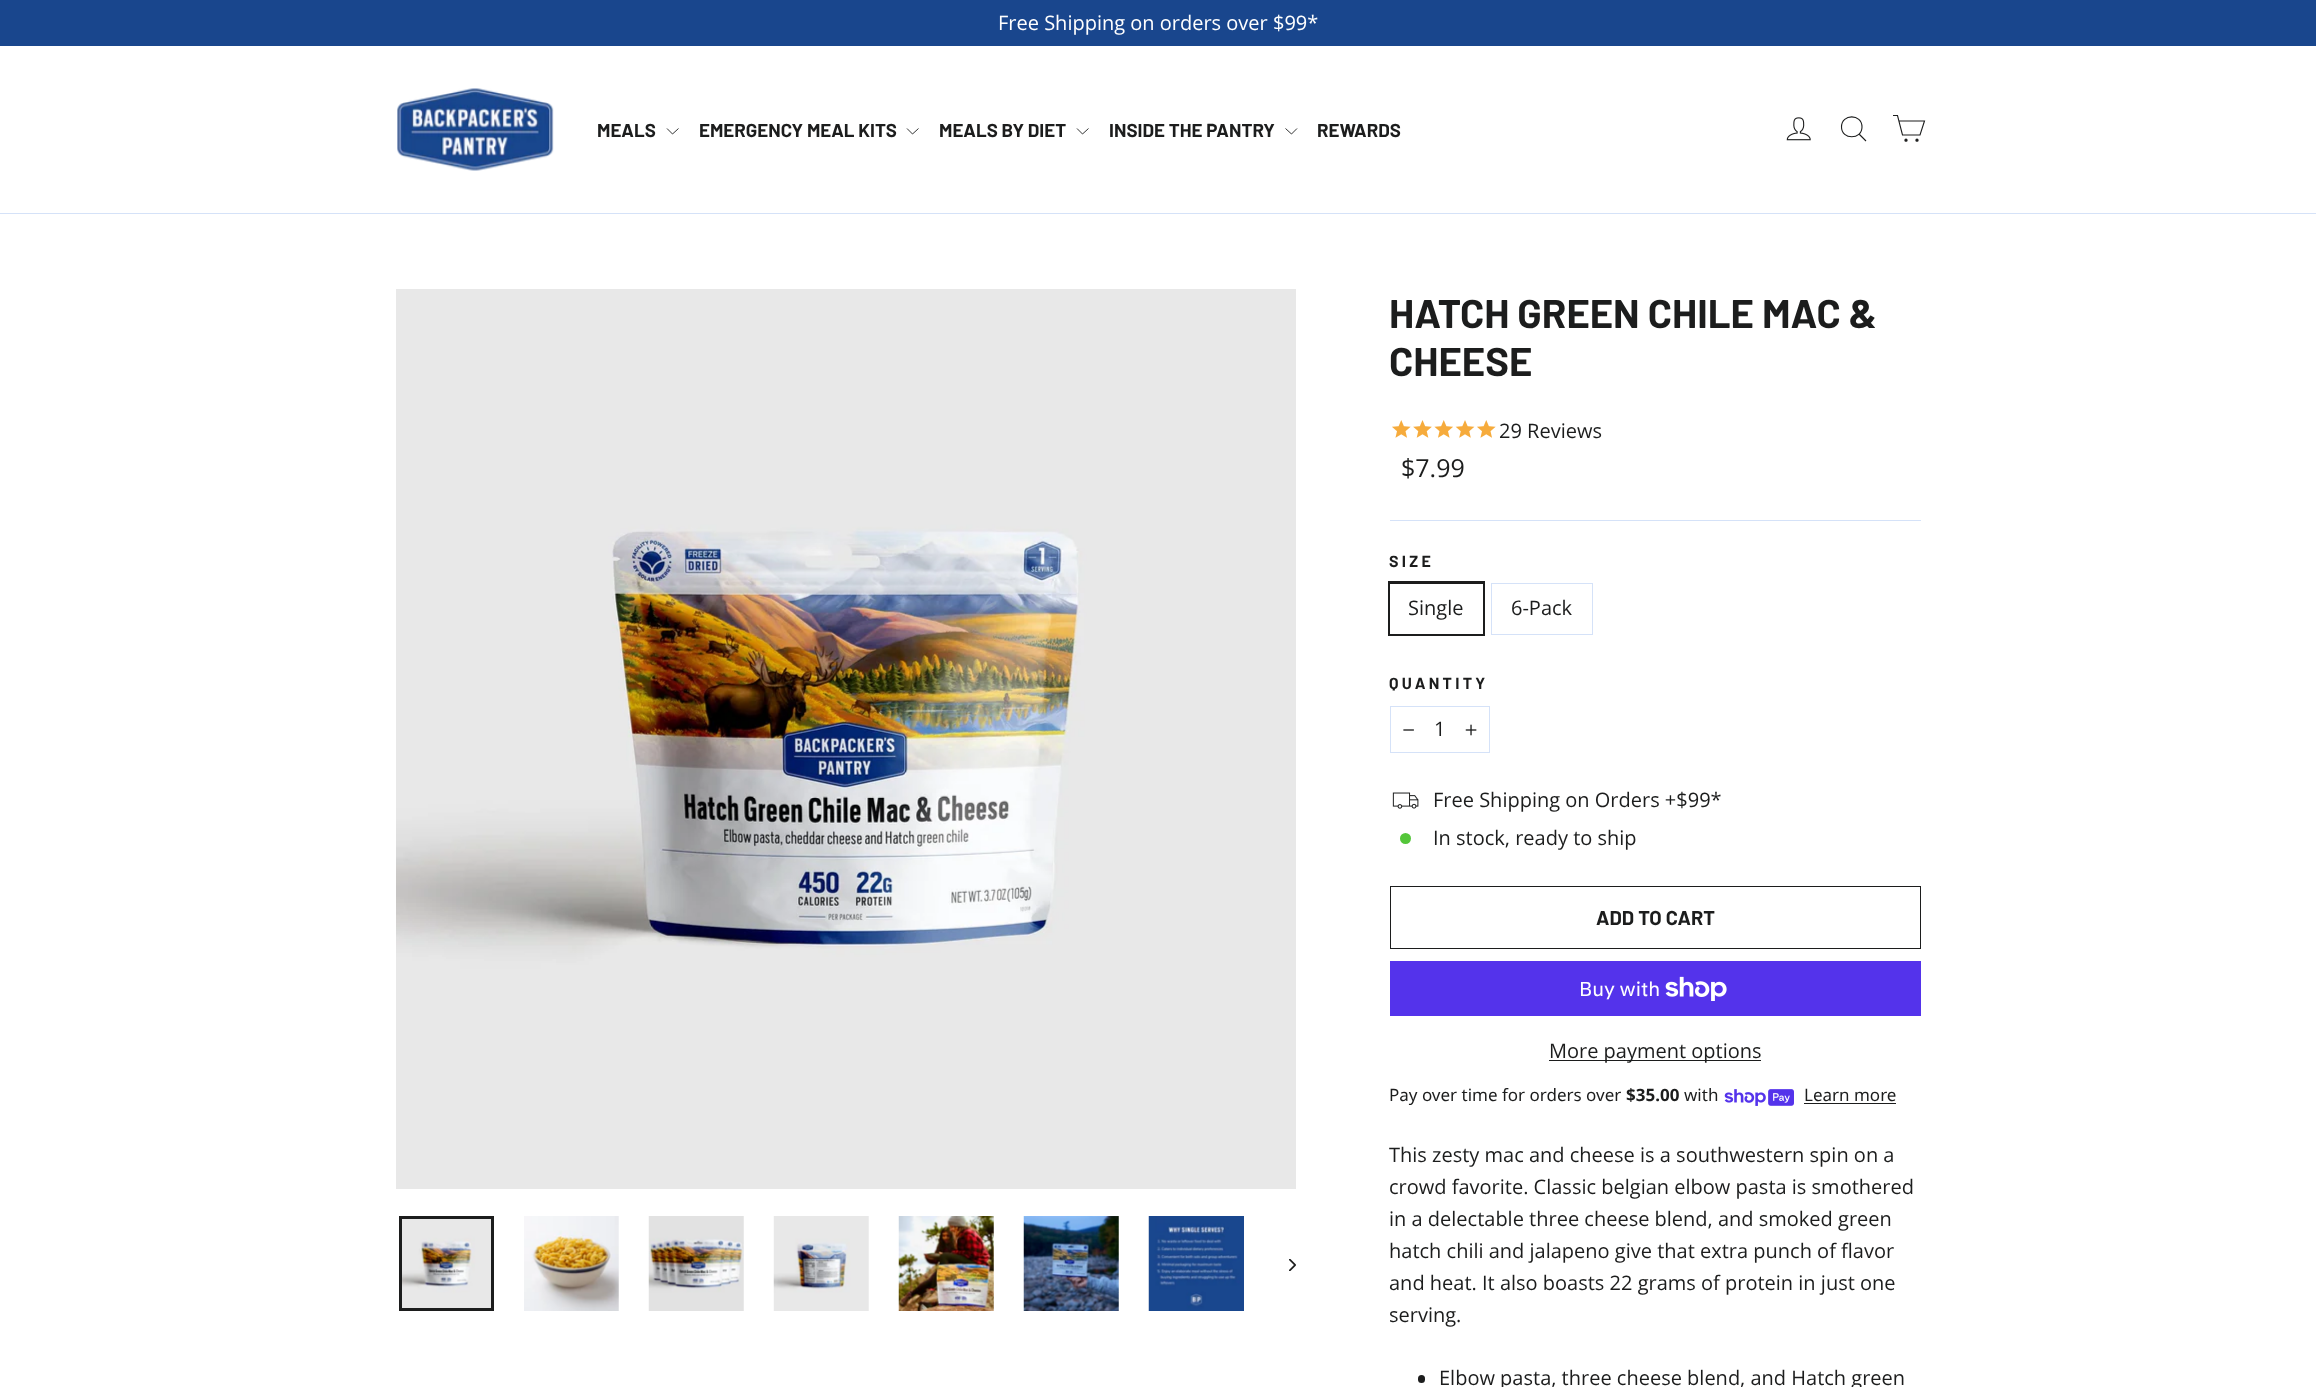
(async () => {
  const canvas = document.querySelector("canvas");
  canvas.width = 2316;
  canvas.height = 1387;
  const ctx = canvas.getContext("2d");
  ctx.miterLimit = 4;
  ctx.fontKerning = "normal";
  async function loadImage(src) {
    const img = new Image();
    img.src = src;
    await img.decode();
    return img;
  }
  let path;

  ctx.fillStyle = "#ffffff";
  ctx.fillRect(0, 0, 2316, 1387);
  ctx.fillStyle = "#19468d";
  ctx.fillRect(0, 0, 2316, 46);
  ctx.fillStyle = "#d5e2f8";
  ctx.fillRect(0, 213, 2316, 1);
  ctx.drawImage(await loadImage("img/1.png"), 397, 88, 157, 83);
  path = new Path2D("M667 128.5L672.5 134L678.5 128.5");
  ctx.strokeStyle = "#1c1d1d";
  ctx.lineWidth = 0.9;
  ctx.stroke(path);
  path = new Path2D("M907 128.5L912.5 134L918.5 128.5");
  ctx.stroke(path);
  path = new Path2D("M1077 128.5L1082.5 134L1088.5 128.5");
  ctx.stroke(path);
  path = new Path2D("M1285.5 128.5L1291.5 134L1297 128.5");
  ctx.stroke(path);
  ctx.drawImage(await loadImage("img/2.png"), 1786, 117, 25, 24);
  path = new Path2D("M1862 127C1862 140 1841.5 140 1841.5 127C1841.5 113.5 1862 113.5 1862 127ZM1866 141L1859 134");
  ctx.lineWidth = 1.1;
  ctx.stroke(path);
  path = new Path2D("M1899 121H1924.5L1920 135H1902.5L1897.5 115.5H1893");
  ctx.stroke(path);
  ctx.fillStyle = "#1c1d1d";
  ctx.beginPath();
  ctx.arc(1906, 140.2, 1.1, 0, Math.PI * 2);
  ctx.fill();
  ctx.stroke();
  ctx.beginPath();
  ctx.arc(1917, 140.2, 1.1, 0, Math.PI * 2);
  ctx.fill();
  ctx.stroke();
  ctx.drawImage(await loadImage("img/3.png"), 396, 289, 900, 900);
  ctx.drawImage(await loadImage("img/4.png"), 402, 1219, 89, 89);
  ctx.lineWidth = 3;
  ctx.strokeRect(400.5, 1217.5, 92, 92);
  ctx.drawImage(await loadImage("img/5.png"), 524, 1216, 95, 95);
  ctx.drawImage(await loadImage("img/6.png"), 648, 1216, 96, 95);
  ctx.drawImage(await loadImage("img/7.png"), 773, 1216, 96, 95);
  ctx.drawImage(await loadImage("img/8.png"), 898, 1216, 96, 95);
  ctx.drawImage(await loadImage("img/9.png"), 1023, 1216, 96, 95);
  ctx.drawImage(await loadImage("img/10.png"), 1148, 1216, 96, 95);
  ctx.drawImage(await loadImage("img/11.png"), 1289, 1259, 7, 12);
  ctx.drawImage(await loadImage("img/12.png"), 1392, 420, 19, 18);
  ctx.drawImage(await loadImage("img/13.png"), 1413, 420, 19, 18);
  ctx.drawImage(await loadImage("img/14.png"), 1434, 420, 19, 18);
  ctx.drawImage(await loadImage("img/15.png"), 1455, 420, 20, 18);
  ctx.drawImage(await loadImage("img/12.png"), 1477, 420, 19, 18);
  ctx.fillStyle = "#d5e2f8";
  ctx.fillRect(1390, 520, 531, 1);
  ctx.strokeRect(1389.5, 582.5, 94, 52);
  ctx.fillStyle = "#ffffff";
  ctx.fillRect(1390, 584, 93, 50);
  ctx.strokeStyle = "#d5e2f8";
  ctx.lineWidth = 1;
  ctx.strokeRect(1491.5, 583.5, 101, 51);
  ctx.strokeRect(1390.5, 706.5, 99, 46);
  ctx.drawImage(await loadImage("img/16.png"), 1403, 729, 11, 2);
  ctx.drawImage(await loadImage("img/17.png"), 1465, 724, 12, 12);
  ctx.drawImage(await loadImage("img/18.png"), 1392, 792, 27, 17);
  ctx.fillStyle = "#54c63a";
  ctx.beginPath();
  ctx.arc(1405.5, 838.5, 5.5, 0, Math.PI * 2);
  ctx.fill();
  ctx.strokeStyle = "#1c1d1d";
  ctx.strokeRect(1390.5, 886.5, 530, 62);
  ctx.fillStyle = "#5433eb";
  ctx.fillRect(1390, 961, 531, 55);
  ctx.drawImage(await loadImage("img/19.png"), 1665, 976, 62, 25);
  ctx.fillStyle = "#1c1d1d";
  ctx.fillRect(1549, 1060, 212, 1);
  ctx.drawImage(await loadImage("img/20.png"), 1724, 1089, 70, 17);
  ctx.fillRect(1804, 1103, 92, 1);
  ctx.beginPath();
  ctx.roundRect(1418, 1375, 7, 8, 3.5);
  ctx.fill();
  ctx.font = "20px Open Sans";
  ctx.fillStyle = "#ffffff";
  ctx.fillText("Free Shipping on orders over $99*", 998, 30);
  ctx.font = "bold 18.75px Barlow";
  ctx.fillStyle = "#1c1d1d";
  for (const [text, x, y] of [
    ["MEALS", 597, 137],
    ["EMERGENCY MEAL KITS", 699, 137],
    ["MEALS BY DIET", 939, 137],
    ["INSIDE THE PANTRY", 1109, 137],
    ["REWARDS", 1317, 137],
  ]) {
    ctx.fillText(text, x, y);
  }
  ctx.font = "bold 40px Barlow";
  ctx.fillText("HATCH GREEN CHILE MAC &", 1389, 328);
  ctx.fillText("CHEESE", 1389, 376);
  ctx.font = "20px Open Sans";
  ctx.fillText("29 Reviews", 1499, 438);
  ctx.font = "25px Open Sans";
  ctx.fillText("$7.99", 1401, 477);
  ctx.letterSpacing = "3.25px";
  ctx.font = "bold 16px Barlow";
  ctx.fillText("SIZE", 1389, 567);
  ctx.letterSpacing = "0px";
  ctx.font = "20px Open Sans";
  ctx.fillText("Single", 1408, 615);
  ctx.fillText("6-Pack", 1511, 615);
  ctx.letterSpacing = "3.25px";
  ctx.font = "bold 16px Barlow";
  ctx.fillText("QUANTITY", 1389, 689);
  ctx.letterSpacing = "0px";
  ctx.font = "20px Open Sans";
  for (const [text, x, y] of [
    ["1", 1434, 736],
    ["Free Shipping on Orders +$99*", 1433, 807],
    ["In stock, ready to ship", 1433, 845],
  ]) {
    ctx.fillText(text, x, y);
  }
  ctx.font = "bold 20px Barlow";
  ctx.fillText("ADD TO CART", 1596, 925);
  ctx.font = "20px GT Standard";
  ctx.fillStyle = "#ffffff";
  ctx.fillText("Buy with", 1579, 996);
  ctx.font = "20px Open Sans";
  ctx.fillStyle = "#1c1d1d";
  ctx.fillText("More payment options", 1549, 1058);
  ctx.font = "17px Noto Sans";
  ctx.fillText("Pay over time for orders over", 1389, 1101);
  ctx.font = "bold 17px Noto Sans";
  ctx.fillText("$35.00", 1626, 1101);
  ctx.font = "17px Noto Sans";
  ctx.fillText("with", 1684, 1101);
  ctx.fillText("Learn more", 1804, 1101);
  ctx.font = "20px Open Sans";
  for (const [text, x, y] of [
    ["This zesty mac and cheese is a southwestern spin on a", 1389, 1162],
    ["crowd favorite. Classic belgian elbow pasta is smothered", 1389, 1194],
    ["in a delectable three cheese blend, and smoked green", 1389, 1226],
    ["hatch chili and jalapeno give that extra punch of flavor", 1389, 1258],
    ["and heat. It also boasts 22 grams of protein in just one", 1389, 1290],
    ["serving.", 1389, 1322],
    ["Elbow pasta, three cheese blend, and Hatch green", 1439, 1385],
  ]) {
    ctx.fillText(text, x, y);
  }
})();
